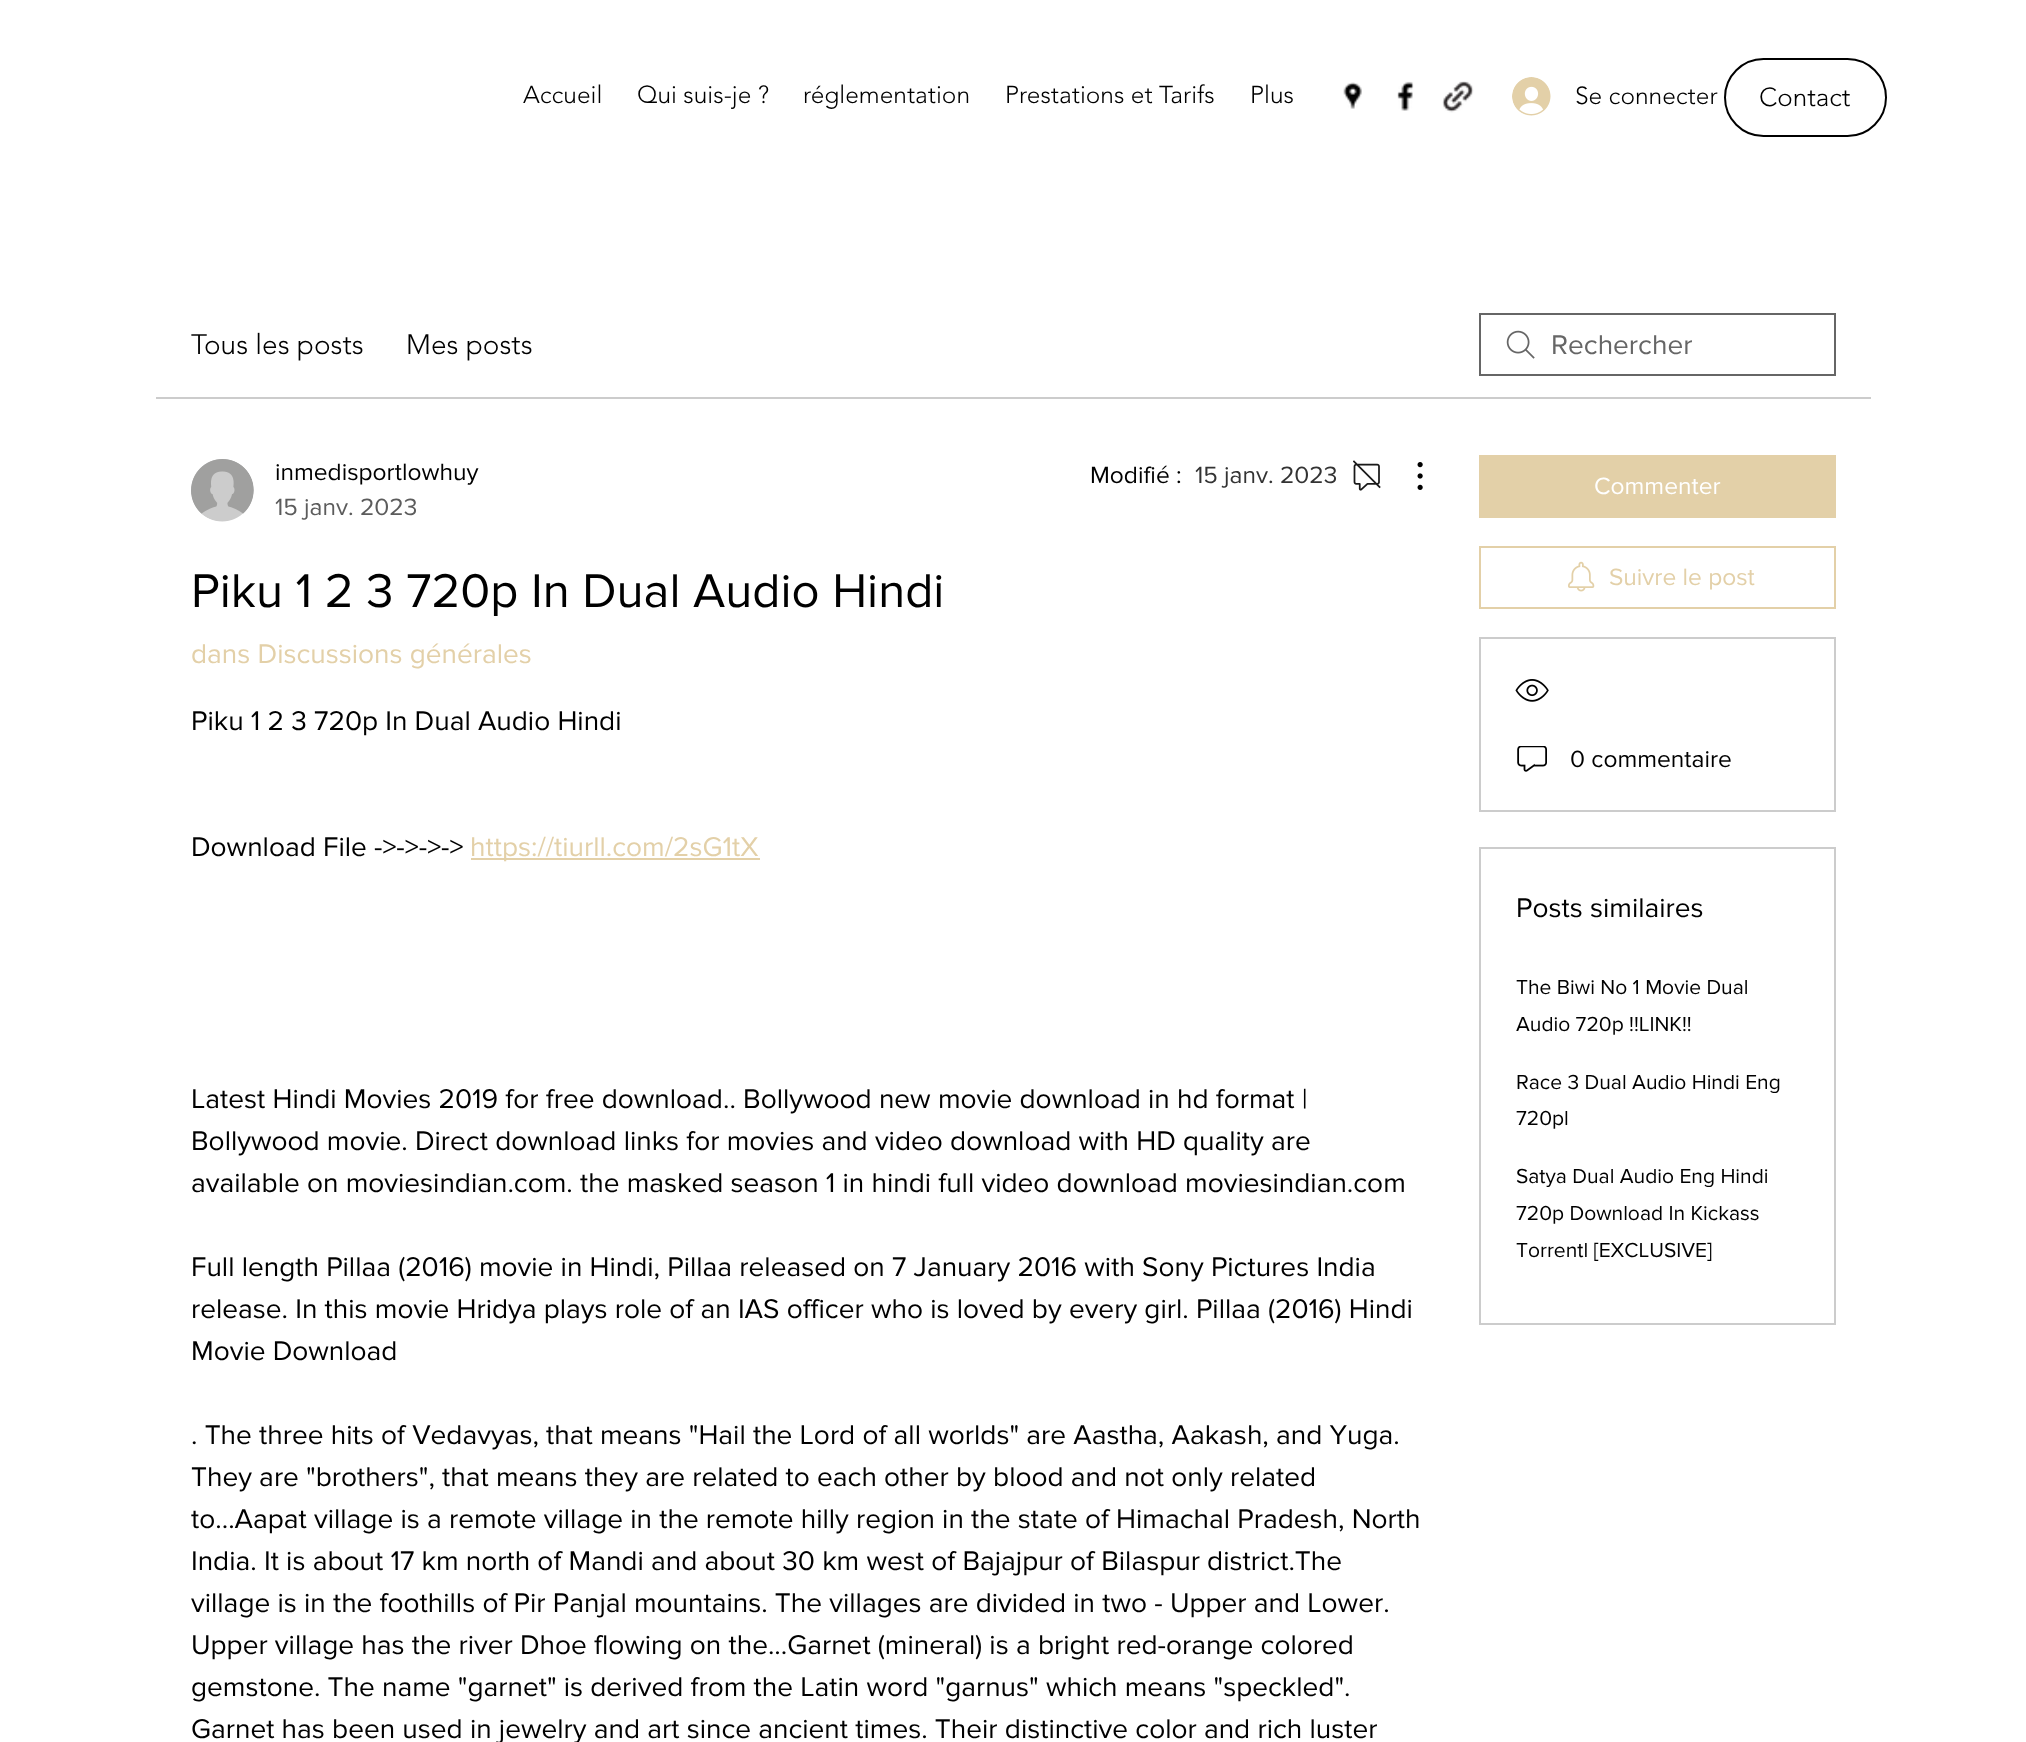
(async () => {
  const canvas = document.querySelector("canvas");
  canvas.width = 2026;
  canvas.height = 1742;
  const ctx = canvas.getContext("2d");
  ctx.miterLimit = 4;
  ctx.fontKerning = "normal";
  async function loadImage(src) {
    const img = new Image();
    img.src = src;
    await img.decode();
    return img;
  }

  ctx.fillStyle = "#ffffff";
  ctx.fillRect(0, 0, 2026, 1742);
  ctx.drawImage(await loadImage("img/1.png"), 1343, 82, 19, 27);
  ctx.drawImage(await loadImage("img/2.png"), 1397, 81, 17, 30);
  ctx.drawImage(await loadImage("img/3.png"), 1442, 81, 32, 32);
  ctx.drawImage(await loadImage("img/4.png"), 1512, 77, 39, 39);
  ctx.beginPath();
  ctx.roundRect(1725, 59, 161, 77, 38.5);
  ctx.strokeStyle = "#000000";
  ctx.lineWidth = 2;
  ctx.stroke();
  ctx.fillStyle = "#cccccc";
  ctx.fillRect(156, 397, 1715, 2);
  ctx.drawImage(await loadImage("img/5.png"), 1506, 330, 29, 29);
  ctx.strokeStyle = "#666666";
  ctx.strokeRect(1480, 314, 355, 61);
  ctx.drawImage(await loadImage("img/6.png"), 191, 459, 63, 63);
  ctx.drawImage(await loadImage("img/7.png"), 1353, 460, 28, 31);
  ctx.drawImage(await loadImage("img/8.png"), 1417, 462, 6, 28);
  ctx.fillStyle = "#e3d0a8";
  ctx.fillRect(471, 858, 289, 2);
  ctx.fillRect(1479, 455, 357, 63);
  ctx.strokeStyle = "#e3d0a8";
  ctx.strokeRect(1480, 547, 355, 61);
  ctx.drawImage(await loadImage("img/9.png"), 1568, 561, 27, 31);
  ctx.strokeStyle = "#cccccc";
  ctx.strokeRect(1480, 638, 355, 173);
  ctx.drawImage(await loadImage("img/10.png"), 1515, 679, 34, 23);
  ctx.drawImage(await loadImage("img/11.png"), 1517, 746, 30, 26);
  ctx.strokeRect(1480, 848, 355, 476);
  ctx.font = "300 24.5px 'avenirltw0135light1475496'";
  ctx.fillStyle = "#000000";
  for (const [text, x, y] of [
    ["Accueil", 523, 103],
    ["Qui suis-je ?", 637, 103],
    ["réglementation", 803, 103],
    ["Prestations et Tarifs", 1005, 103],
    ["Plus", 1250, 103],
    ["Se connecter", 1575, 104],
  ]) {
    ctx.fillText(text, x, y);
  }
  ctx.font = "300 26px 'avenirltw0135light1475496'";
  ctx.fillText("Contact", 1759, 106);
  ctx.font = "300 28px 'avenirltw0135light1475496'";
  ctx.fillText("Tous les posts", 191, 354);
  ctx.fillText("Mes posts", 406, 354);
  ctx.font = "28px 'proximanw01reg'";
  ctx.fillStyle = "#666666";
  ctx.fillText("Rechercher", 1551, 354);
  ctx.font = "24.5px 'proximanw01reg'";
  ctx.fillStyle = "#000000";
  ctx.fillText("inmedisportlowhuy", 275, 480);
  ctx.fillStyle = "#5c5c5c";
  ctx.fillText("15 janv. 2023", 275, 515);
  ctx.fillStyle = "#000000";
  ctx.fillText("Modifié :", 1090, 483);
  ctx.fillStyle = "#333333";
  ctx.fillText("15 janv. 2023", 1195, 483);
  ctx.font = "49px 'proximanw01reg'";
  ctx.fillStyle = "#000000";
  ctx.fillText("Piku 1 2 3 720p In Dual Audio Hindi", 191, 607);
  ctx.font = "28px 'proximanw01reg'";
  ctx.fillStyle = "#e3d0a8";
  ctx.fillText("dans Discussions générales", 191, 663);
  ctx.fillStyle = "#000000";
  ctx.fillText("Piku 1 2 3 720p In Dual Audio Hindi", 191, 730);
  ctx.fillText("Download File ->->->->", 191, 856);
  ctx.fillStyle = "#e3d0a8";
  ctx.fillText("https://tiurll.com/2sG1tX", 470, 856);
  ctx.fillStyle = "#000000";
  for (const [text, x, y] of [
    ["Latest Hindi Movies 2019 for free download.. Bollywood new movie download in hd format |", 191, 1108],
    ["Bollywood movie. Direct download links for movies and video download with HD quality are", 191, 1150],
    ["available on moviesindian.com. the masked season 1 in hindi full video download moviesindian.com", 191, 1192],
    ["Full length Pillaa (2016) movie in Hindi, Pillaa released on 7 January 2016 with Sony Pictures India", 191, 1276],
    ["release. In this movie Hridya plays role of an IAS officer who is loved by every girl. Pillaa (2016) Hindi", 191, 1318],
    ["Movie Download", 191, 1360],
    [". The three hits of Vedavyas, that means \"Hail the Lord of all worlds\" are Aastha, Aakash, and Yuga.", 191, 1444],
    ["They are \"brothers\", that means they are related to each other by blood and not only related", 191, 1486],
    ["to...Aapat village is a remote village in the remote hilly region in the state of Himachal Pradesh, North", 191, 1528],
    ["India. It is about 17 km north of Mandi and about 30 km west of Bajajpur of Bilaspur district.The", 191, 1570],
    ["village is in the foothills of Pir Panjal mountains. The villages are divided in two - Upper and Lower.", 191, 1612],
    ["Upper village has the river Dhoe flowing on the...Garnet (mineral) is a bright red-orange colored", 191, 1654],
    ["gemstone. The name \"garnet\" is derived from the Latin word \"garnus\" which means \"speckled\".", 191, 1696],
    ["Garnet has been used in jewelry and art since ancient times. Their distinctive color and rich luster", 191, 1738],
  ]) {
    ctx.fillText(text, x, y);
  }
  ctx.font = "24.5px 'proximanw01reg'";
  ctx.fillStyle = "#ffffff";
  ctx.fillText("Commenter", 1594, 494);
  ctx.fillStyle = "#e3d0a8";
  ctx.fillText("Suivre le post", 1609, 585);
  ctx.fillStyle = "#000000";
  ctx.fillText("0 commentaire", 1570, 767);
  ctx.font = "28px 'proximanw01reg'";
  ctx.fillText("Posts similaires", 1516, 917);
  ctx.font = "21px 'proximanw01reg'";
  for (const [text, x, y] of [
    ["The Biwi No 1 Movie Dual", 1516, 994],
    ["Audio 720p !!LINK!!", 1516, 1031],
    ["Race 3 Dual Audio Hindi Eng", 1516, 1089],
    ["720pl", 1516, 1125],
    ["Satya Dual Audio Eng Hindi", 1516, 1183],
    ["720p Download In Kickass", 1516, 1220],
    ["Torrentl [EXCLUSIVE]", 1516, 1257],
  ]) {
    ctx.fillText(text, x, y);
  }
})();
